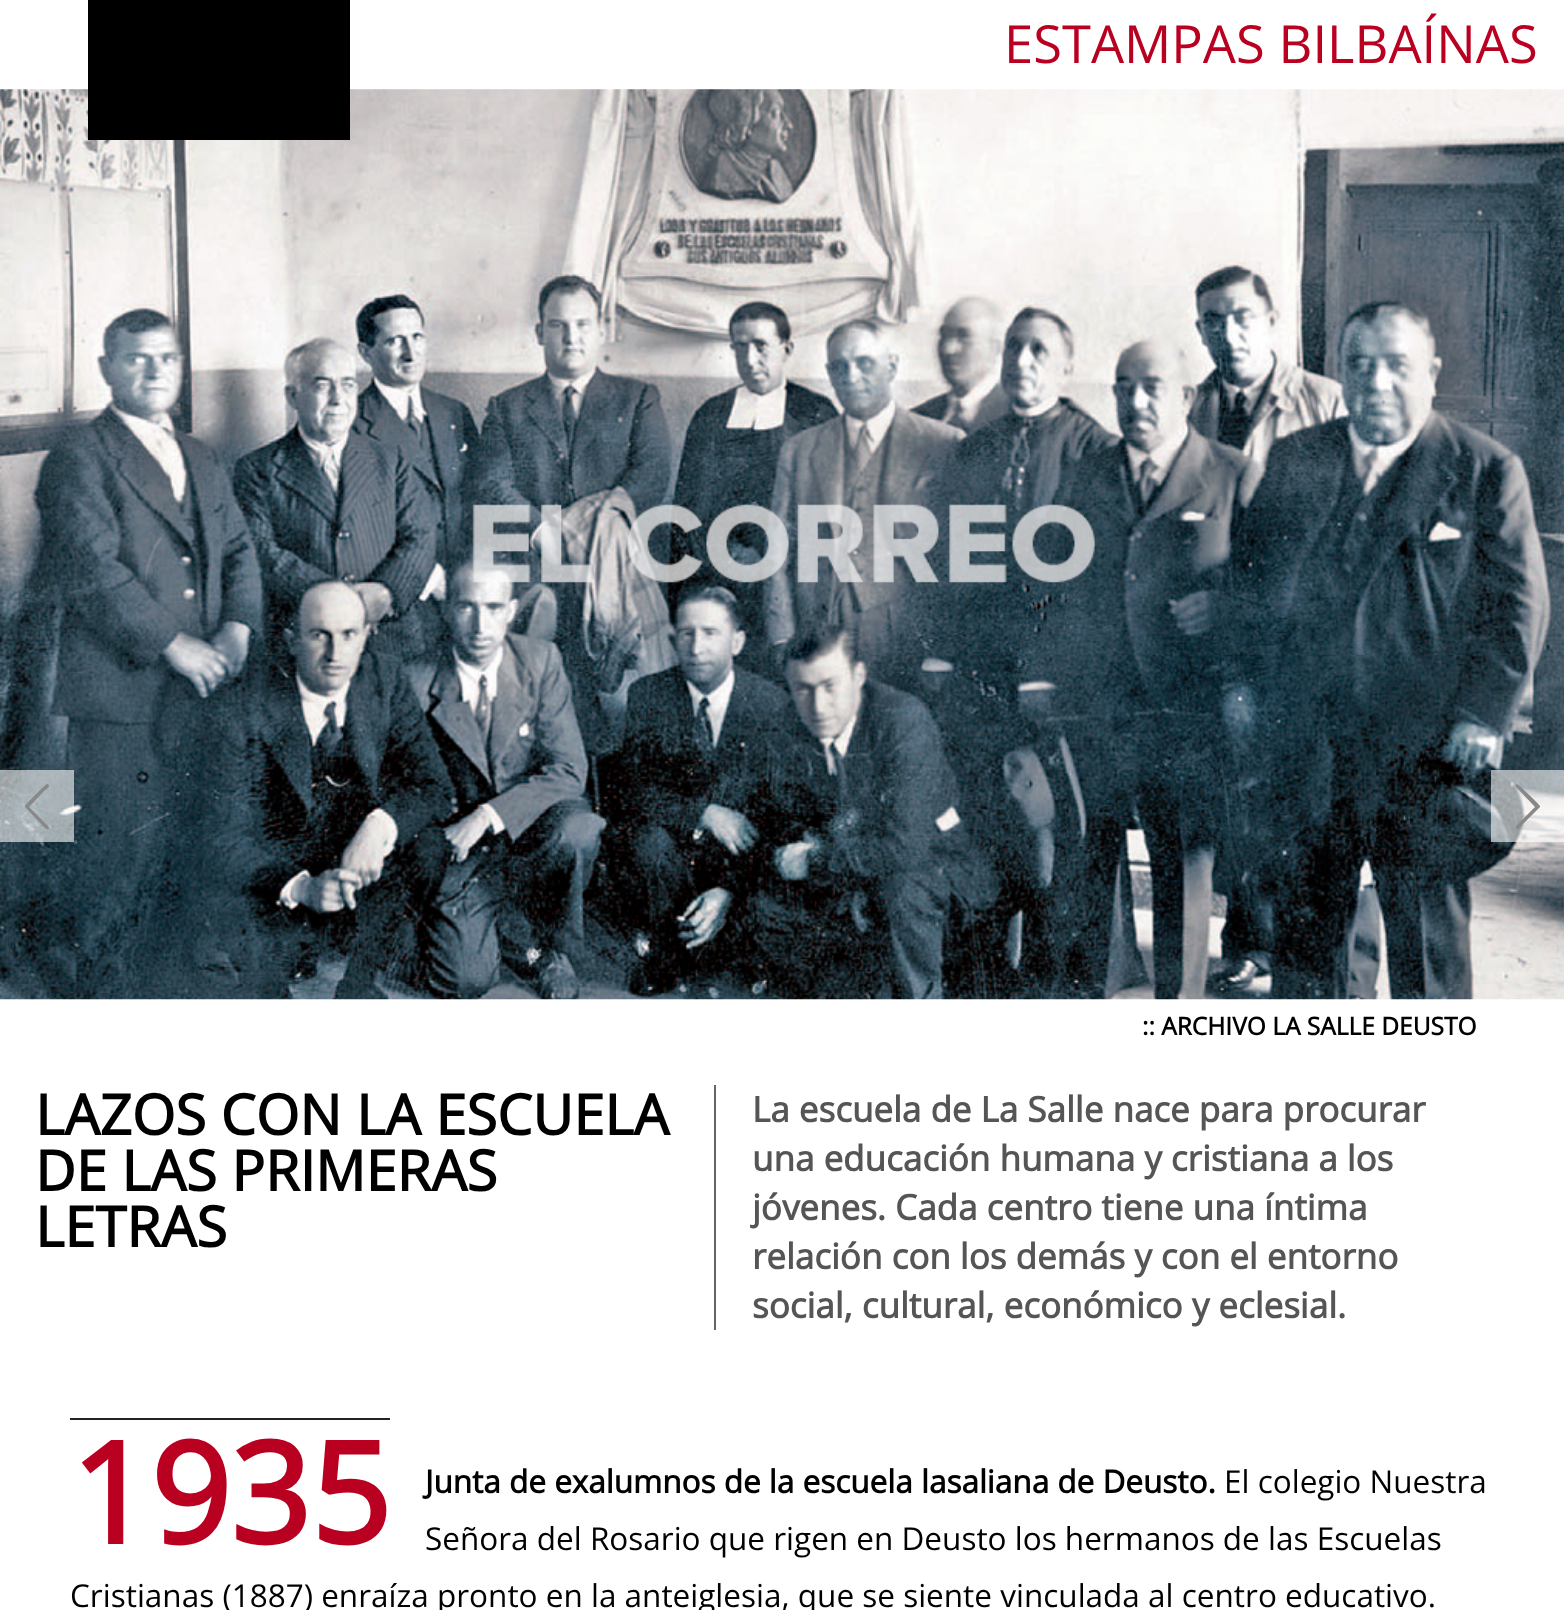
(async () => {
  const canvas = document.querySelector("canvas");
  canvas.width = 1564;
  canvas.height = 1610;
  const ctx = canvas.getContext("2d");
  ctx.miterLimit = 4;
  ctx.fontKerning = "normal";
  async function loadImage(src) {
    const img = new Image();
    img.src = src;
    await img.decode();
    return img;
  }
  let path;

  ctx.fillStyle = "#ffffff";
  ctx.fillRect(0, 0, 1564, 1610);
  ctx.drawImage(await loadImage("img/1.png"), 0, 89, 1564, 911);
  ctx.fillStyle = "#000000";
  ctx.fillRect(88, 0, 262, 140);
  ctx.fillStyle = "rgba(255, 255, 255, 0.6)";
  ctx.fillRect(0, 770, 74, 72);
  ctx.fillStyle = "#888888";
  path = new Path2D("M48 826L49 828C48 832 43 826 42 825L25 807V806C27 803 46 784 47 784C52 785 46 790 45 790L29 807Z");
  ctx.fill(path);
  ctx.fillStyle = "rgba(255, 255, 255, 0.6)";
  ctx.fillRect(1491, 770, 73, 72);
  ctx.fillStyle = "#888888";
  path = new Path2D("M1516 826L1535 807L1519 790C1519 790 1513 785 1517 784C1518 784 1538 803 1540 806V807L1522 825C1522 826 1517 832 1516 828Z");
  ctx.fill(path);
  ctx.fillStyle = "#666666";
  ctx.fillRect(714, 1085, 2, 245);
  ctx.fillStyle = "#222222";
  ctx.fillRect(70, 1418, 320, 2);
  ctx.font = "52.5px Open Sans";
  ctx.fillStyle = "#b90021";
  ctx.fillText("ESTAMPAS BILBAÍNAS", 1004, 63);
  ctx.font = "bold 24.5px Open Sans";
  ctx.fillStyle = "#000000";
  ctx.fillText(":: ARCHIVO LA SALLE DEUSTO", 1142, 1035);
  ctx.font = "bold 56px Open Sans";
  for (const [text, x, y] of [
    ["LAZOS CON LA ESCUELA", 35, 1135],
    ["DE LAS PRIMERAS", 35, 1191],
    ["LETRAS", 35, 1247],
  ]) {
    ctx.fillText(text, x, y);
  }
  ctx.font = "bold 35px Open Sans";
  ctx.fillStyle = "#555555";
  for (const [text, x, y] of [
    ["La escuela de La Salle nace para procurar", 752, 1122],
    ["una educación humana y cristiana a los", 752, 1171],
    ["jóvenes. Cada centro tiene una íntima", 752, 1220],
    ["relación con los demás y con el entorno", 752, 1269],
    ["social, cultural, económico y eclesial.", 752, 1318],
  ]) {
    ctx.fillText(text, x, y);
  }
  ctx.font = "bold 140px Open Sans";
  ctx.fillStyle = "#b90021";
  ctx.fillText("1935", 70, 1544);
  ctx.font = "bold 31.5px Open Sans";
  ctx.fillStyle = "#000000";
  ctx.fillText("Junta de exalumnos de la escuela lasaliana de Deusto.", 425, 1493);
  ctx.font = "31.5px Open Sans";
  for (const [text, x, y] of [
    ["El colegio Nuestra", 1224, 1493],
    ["Señora del Rosario que rigen en Deusto los hermanos de las Escuelas", 425, 1550],
    ["Cristianas (1887) enraíza pronto en la anteiglesia, que se siente vinculada al centro educativo.", 70, 1607],
  ]) {
    ctx.fillText(text, x, y);
  }
})();
